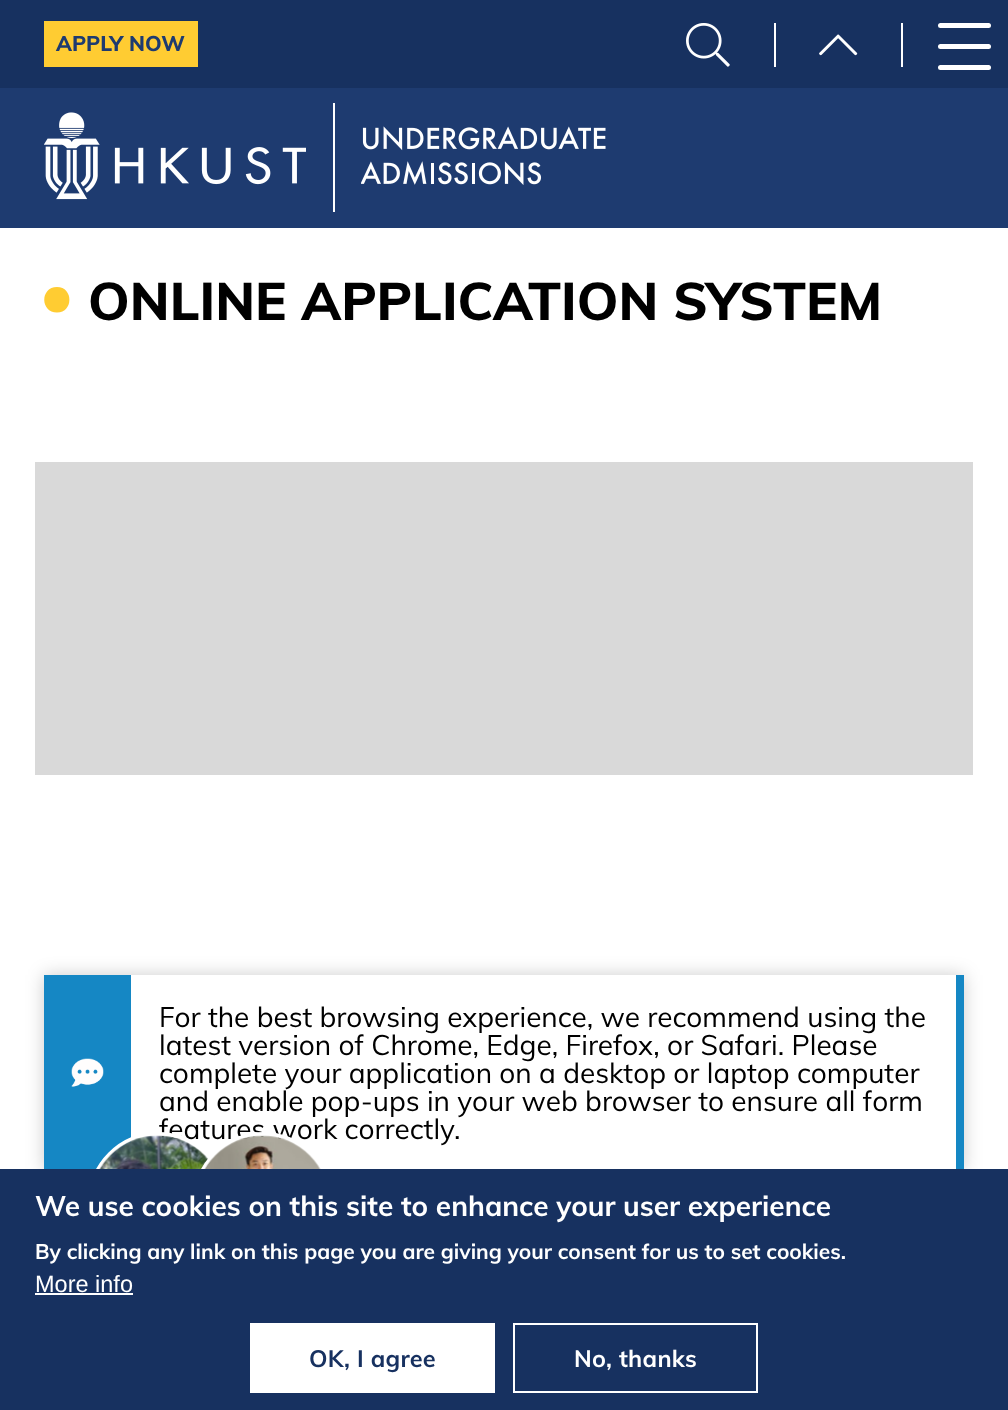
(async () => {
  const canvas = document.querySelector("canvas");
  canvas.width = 1008;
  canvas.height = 1410;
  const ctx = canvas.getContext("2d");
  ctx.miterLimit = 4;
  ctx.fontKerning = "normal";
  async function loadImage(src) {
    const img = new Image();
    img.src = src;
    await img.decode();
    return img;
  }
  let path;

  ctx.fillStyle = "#ffffff";
  ctx.fillRect(0, 0, 1008, 1410);
  ctx.fillStyle = "#173160";
  ctx.fillRect(0, 0, 1008, 88);
  ctx.fillStyle = "#ffcc32";
  ctx.fillRect(44, 21, 154, 46);
  ctx.drawImage(await loadImage("img/1.png"), 686, 23, 44, 44);
  ctx.fillStyle = "#ffffff";
  ctx.fillRect(901, 23, 2, 44);
  ctx.fillRect(774, 23, 2, 44);
  ctx.drawImage(await loadImage("img/2.png"), 819, 34, 39, 22);
  ctx.fillStyle = "#1e3b70";
  ctx.fillRect(0, 88, 1008, 140);
  ctx.fillStyle = "#ffffff";
  ctx.fillRect(333, 103, 2, 109);
  ctx.drawImage(await loadImage("img/3.png"), 44, 112, 262, 88);
  ctx.drawImage(await loadImage("img/4.png"), 361, 126, 245, 59);
  ctx.fillStyle = "#ffcc32";
  path = new Path2D("M57 287C40 287 40 312.5 57 312.5C73.5 312.5 73.5 287 57 287Z");
  ctx.fill(path);
  ctx.fillStyle = "#d9d9d9";
  ctx.fillRect(35, 462, 938, 313);
  ctx.fillStyle = "rgba(0, 0, 0, 0.2)";
  ctx.filter = "blur(9px)";
  ctx.beginPath();
  ctx.rect(44, 975, 920, 196);
  ctx.fill();
  ctx.filter = "none";
  ctx.fillStyle = "#1587c4";
  ctx.fillRect(44, 975, 87, 194);
  ctx.drawImage(await loadImage("img/5.png"), 71, 1058, 33, 29);
  ctx.fillStyle = "#ffffff";
  ctx.fillRect(131, 975, 825, 194);
  ctx.fillStyle = "#1587c4";
  ctx.fillRect(956, 975, 8, 196);
  ctx.fillStyle = "#ffffff";
  ctx.beginPath();
  ctx.roundRect(938, 23, 53, 5, 2.5);
  ctx.fill();
  ctx.beginPath();
  ctx.roundRect(938, 44, 53, 5, 2.5);
  ctx.fill();
  ctx.beginPath();
  ctx.roundRect(938, 65, 53, 5, 2.5);
  ctx.fill();
  ctx.font = "800 21px Muli";
  ctx.fillStyle = "#1e3b70";
  ctx.fillText("APPLY NOW", 56, 51);
  ctx.font = "800 52.5px Muli";
  ctx.fillStyle = "#000000";
  ctx.fillText("ONLINE APPLICATION SYSTEM", 88, 320);
  ctx.font = "28px Muli";
  for (const [text, x, y] of [
    ["For the best browsing experience, we recommend using the", 159, 1027],
    ["latest version of Chrome, Edge, Firefox, or Safari. Please", 159, 1055],
    ["complete your application on a desktop or laptop computer", 159, 1083],
    ["and enable pop-ups in your web browser to ensure all form", 159, 1111],
    ["features work correctly.", 159, 1139],
  ]) {
    ctx.fillText(text, x, y);
  }
  ctx.beginPath();
  ctx.arc(158, 1202, 68, 0, Math.PI * 2);
  ctx.strokeStyle = "#ffffff";
  ctx.lineWidth = 4;
  ctx.stroke();
  ctx.drawImage(await loadImage("img/6.png"), 99, 1135, 112, 34);
  ctx.beginPath();
  ctx.arc(263, 1202, 68, 0, Math.PI * 2);
  ctx.stroke();
  ctx.drawImage(await loadImage("img/7.png"), 204, 1135, 117, 34);
  ctx.fillStyle = "#173160";
  ctx.fillRect(0, 1169, 1008, 241);
  ctx.font = "bold 28px Muli";
  ctx.fillStyle = "#ffffff";
  ctx.fillText("We use cookies on this site to enhance your user experience", 35, 1216);
  ctx.font = "bold 21px Muli";
  ctx.fillText("By clicking any link on this page you are giving your consent for us to set cookies.", 35, 1259);
  ctx.font = "23.5px Liberation Sans";
  ctx.fillText("More info", 35, 1292);
  ctx.fillRect(35, 1293, 98, 2);
  ctx.fillRect(250, 1323, 245, 70);
  ctx.letterSpacing = "0.3px";
  ctx.font = "bold 23.5px Muli";
  ctx.fillStyle = "#173160";
  ctx.fillText("OK, I agree", 309, 1367);
  ctx.lineWidth = 2;
  ctx.strokeRect(514, 1324, 243, 68);
  ctx.fillStyle = "#ffffff";
  ctx.fillText("No, thanks", 574, 1367);
})();
